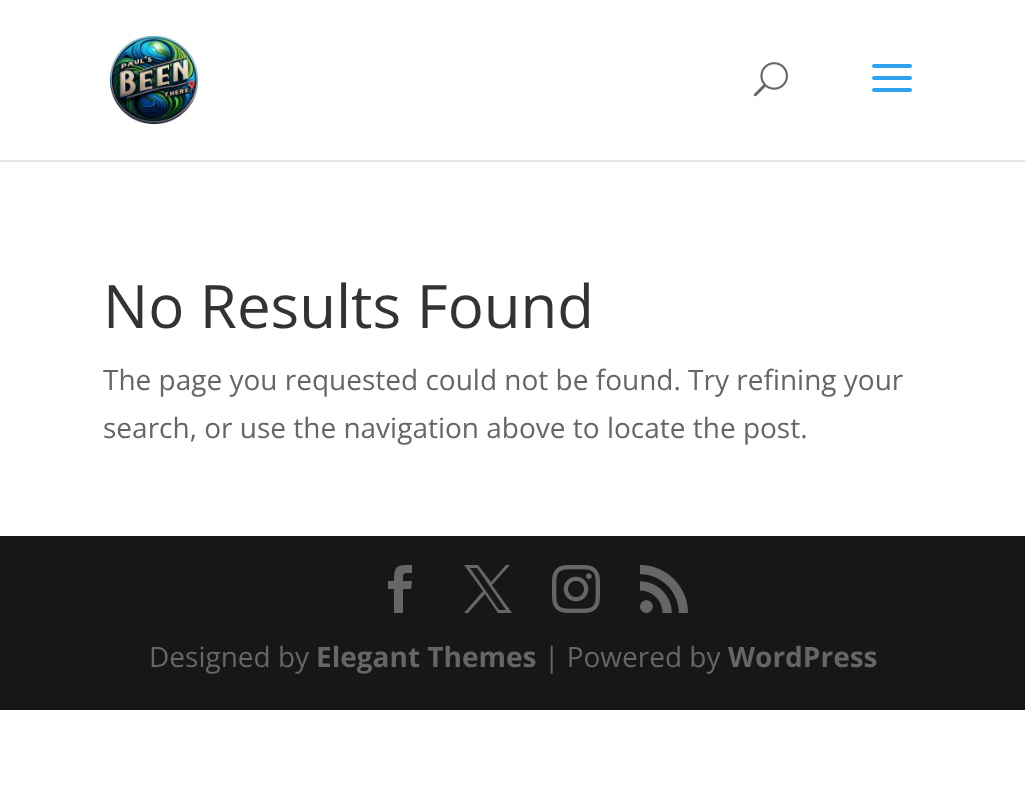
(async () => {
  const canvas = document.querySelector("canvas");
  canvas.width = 1025;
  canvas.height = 800;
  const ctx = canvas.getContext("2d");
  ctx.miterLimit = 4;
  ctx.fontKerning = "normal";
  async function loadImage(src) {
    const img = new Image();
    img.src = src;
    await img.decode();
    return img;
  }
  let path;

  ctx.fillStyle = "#ffffff";
  ctx.fillRect(0, 0, 1025, 800);
  ctx.fillStyle = "#e6e6e6";
  ctx.fillRect(0, 160, 1025, 2);
  ctx.drawImage(await loadImage("img/1.png"), 110, 36, 88, 88);
  ctx.drawImage(await loadImage("img/2.png"), 753, 62, 35, 35);
  ctx.drawImage(await loadImage("img/3.png"), 872, 64, 40, 28);
  ctx.fillStyle = "#171717";
  ctx.fillRect(0, 536, 1025, 174);
  ctx.fillStyle = "#666666";
  path = new Path2D("M394 613H403V589H411L412 581H403C403 572 403 573 412 573V565C397 565 394 565 394 581H388V589H394Z");
  ctx.fill(path);
  path = new Path2D("M464 565L483 591L464 613H468L485 594L498 613H512L492 585L510 565H506L491 582L478 565ZM470 568H477L506 610H499Z");
  ctx.fill(path);
  ctx.drawImage(await loadImage("img/4.png"), 552, 565, 48, 48);
  ctx.drawImage(await loadImage("img/5.png"), 640, 565, 48, 48);
  ctx.font = "60px Open Sans";
  ctx.fillStyle = "#333333";
  ctx.fillText("No Results Found", 103, 328);
  ctx.font = "28px Open Sans";
  ctx.fillStyle = "#666666";
  for (const [text, x, y] of [
    ["The page you requested could not be found. Try refining your", 103, 390],
    ["search, or use the navigation above to locate the post.", 103, 438],
    ["Designed by", 149, 667],
  ]) {
    ctx.fillText(text, x, y);
  }
  ctx.font = "bold 28px Open Sans";
  ctx.fillText("Elegant Themes", 316, 667);
  ctx.font = "28px Open Sans";
  ctx.fillText("| Powered by", 544, 667);
  ctx.font = "bold 28px Open Sans";
  ctx.fillText("WordPress", 728, 667);
})();
